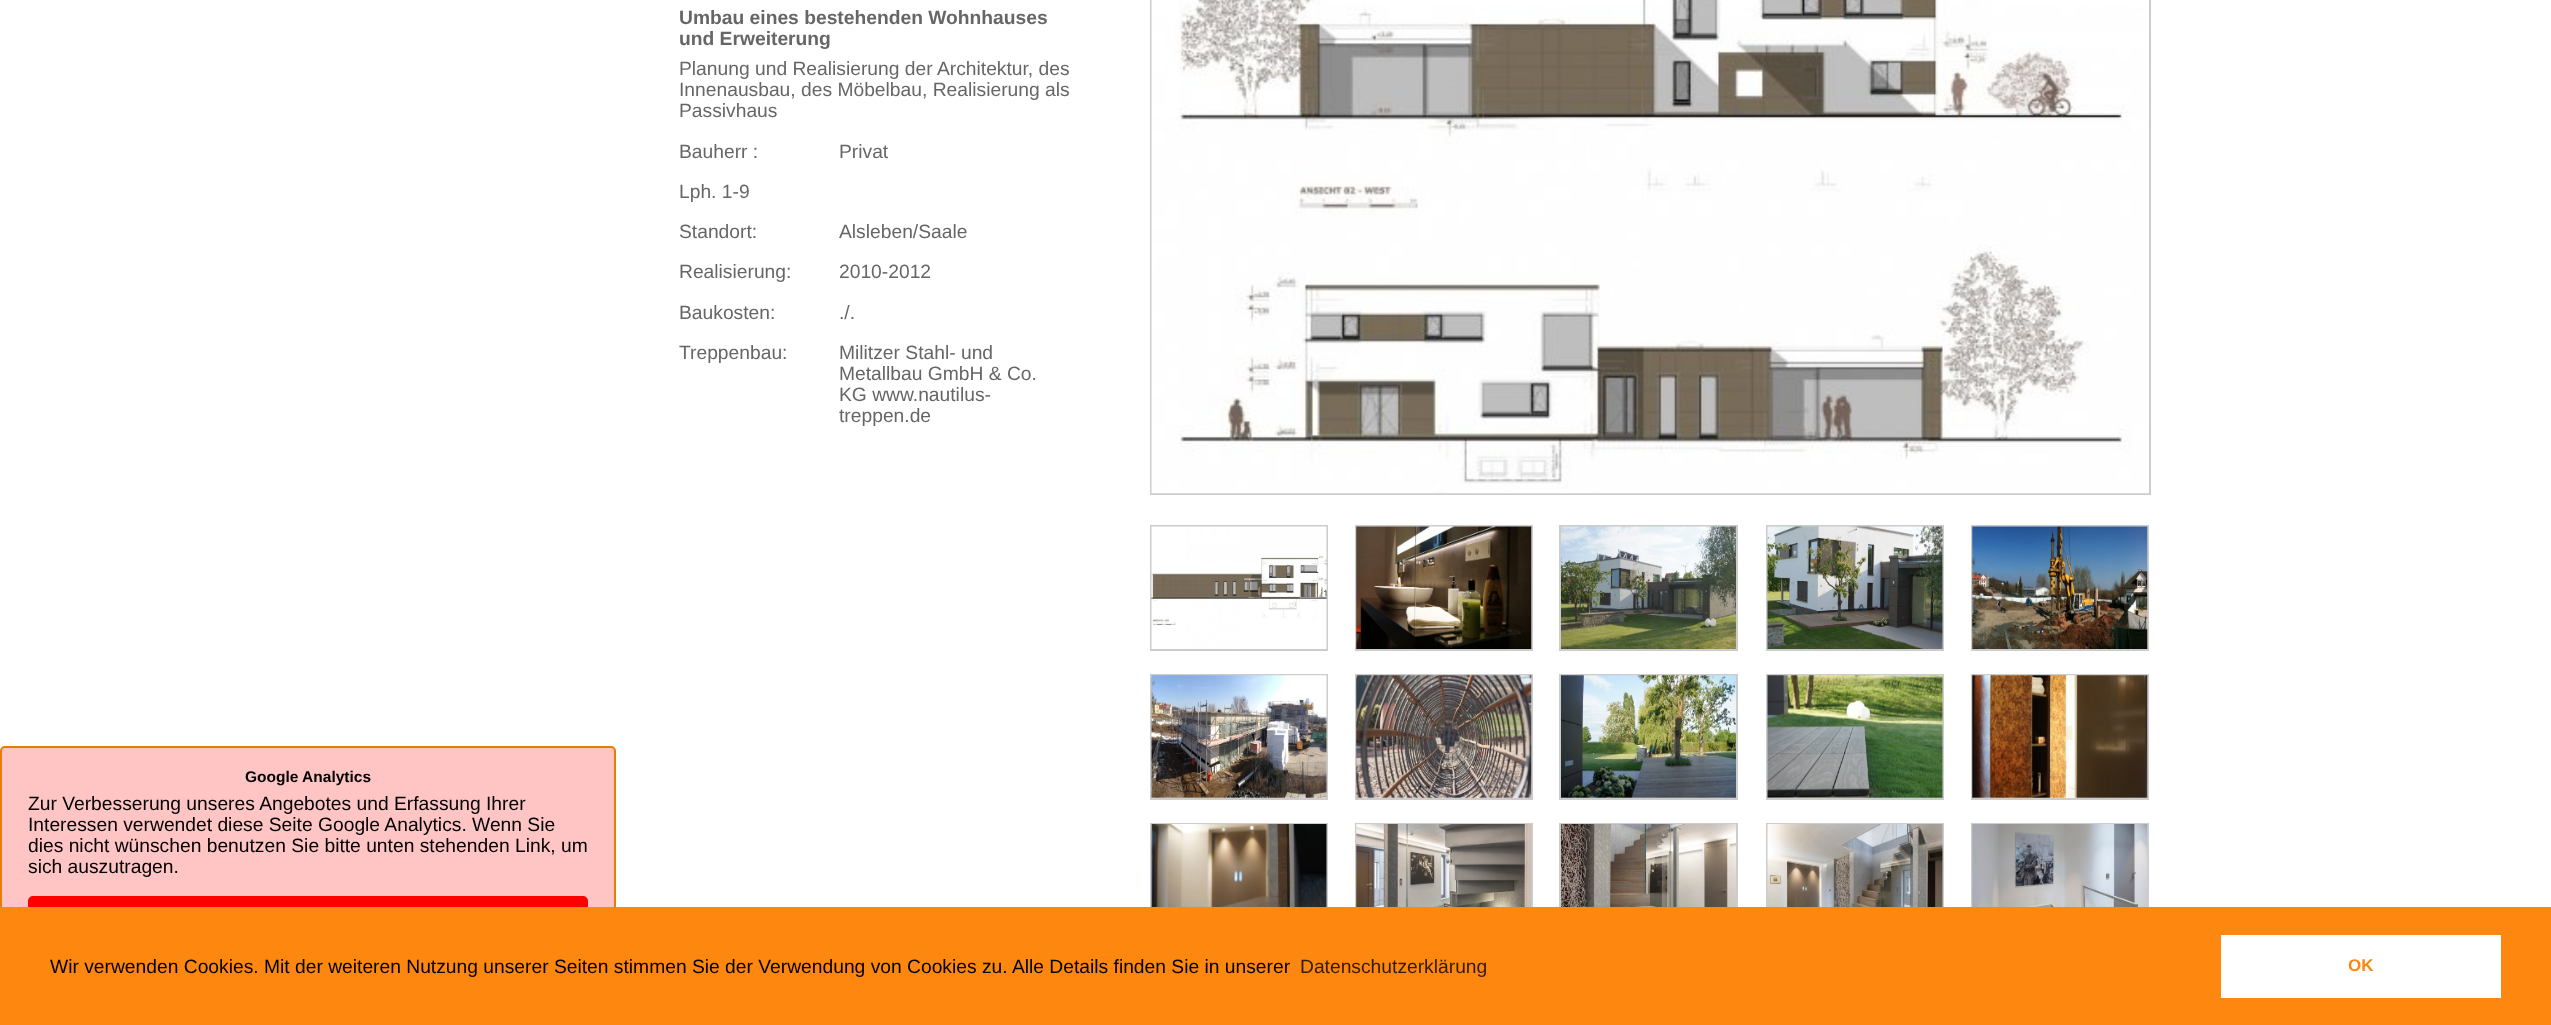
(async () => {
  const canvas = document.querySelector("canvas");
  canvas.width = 2551;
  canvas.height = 1025;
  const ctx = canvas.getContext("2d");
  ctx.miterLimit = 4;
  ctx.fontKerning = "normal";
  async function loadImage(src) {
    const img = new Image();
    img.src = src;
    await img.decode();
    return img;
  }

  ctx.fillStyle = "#ffffff";
  ctx.fillRect(0, 0, 2551, 1025);
  ctx.strokeStyle = "#cccccc";
  ctx.lineWidth = 2;
  ctx.strokeRect(1151, -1, 999, 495);
  ctx.drawImage(await loadImage("img/1.png"), 1151, 0, 998, 494);
  ctx.strokeRect(1151, 526, 176, 124);
  ctx.drawImage(await loadImage("img/2.png"), 1151, 526, 176, 123);
  ctx.strokeRect(1356, 526, 176, 124);
  ctx.drawImage(await loadImage("img/3.png"), 1356, 526, 176, 123);
  ctx.strokeRect(1560, 526, 177, 124);
  ctx.drawImage(await loadImage("img/4.png"), 1561, 526, 175, 123);
  ctx.strokeRect(1767, 526, 176, 124);
  ctx.drawImage(await loadImage("img/5.png"), 1767, 526, 176, 123);
  ctx.strokeRect(1972, 526, 176, 124);
  ctx.drawImage(await loadImage("img/6.png"), 1972, 526, 176, 123);
  ctx.strokeRect(1151, 675, 176, 124);
  ctx.drawImage(await loadImage("img/7.png"), 1151, 675, 176, 123);
  ctx.strokeRect(1356, 675, 176, 124);
  ctx.drawImage(await loadImage("img/8.png"), 1356, 675, 176, 123);
  ctx.strokeRect(1560, 675, 177, 124);
  ctx.drawImage(await loadImage("img/9.png"), 1561, 675, 175, 123);
  ctx.strokeRect(1767, 675, 176, 124);
  ctx.drawImage(await loadImage("img/10.png"), 1767, 675, 176, 123);
  ctx.strokeRect(1972, 675, 176, 124);
  ctx.drawImage(await loadImage("img/11.png"), 1972, 675, 176, 123);
  ctx.strokeRect(1151, 824, 176, 124);
  ctx.drawImage(await loadImage("img/12.png"), 1151, 824, 176, 83);
  ctx.strokeRect(1356, 824, 176, 124);
  ctx.drawImage(await loadImage("img/13.png"), 1356, 824, 176, 83);
  ctx.strokeRect(1560, 824, 177, 124);
  ctx.drawImage(await loadImage("img/14.png"), 1561, 824, 175, 83);
  ctx.strokeRect(1767, 824, 176, 124);
  ctx.drawImage(await loadImage("img/15.png"), 1767, 824, 176, 83);
  ctx.strokeRect(1972, 824, 176, 124);
  ctx.drawImage(await loadImage("img/16.png"), 1972, 824, 176, 83);
  ctx.fillStyle = "#ffc4c4";
  ctx.beginPath();
  ctx.roundRect(1, 747, 614, 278, 4);
  ctx.fill();
  ctx.strokeStyle = "#e57e03";
  ctx.stroke();
  ctx.fillStyle = "#ff0000";
  ctx.beginPath();
  ctx.roundRect(29, 897, 558, 37, 4);
  ctx.fill();
  ctx.strokeStyle = "#ff0000";
  ctx.stroke();
  ctx.fillStyle = "#fe870f";
  ctx.fillRect(0, 907, 2551, 118);
  ctx.fillStyle = "#ffffff";
  ctx.fillRect(2221, 935, 280, 63);
  ctx.font = "bold 19.25px Liberation Sans";
  ctx.fillStyle = "#666666";
  ctx.fillText("Umbau eines bestehenden Wohnhauses", 679, 24);
  ctx.fillText("und Erweiterung", 679, 45);
  ctx.font = "19.25px Liberation Sans";
  for (const [text, x, y] of [
    ["Planung und Realisierung der Architektur, des", 679, 75],
    ["Innenausbau, des Möbelbau, Realisierung als", 679, 96],
    ["Passivhaus", 679, 117],
    ["Bauherr :", 679, 158],
    ["Privat", 839, 158],
    ["Lph. 1-9", 679, 198],
    ["Standort:", 679, 238],
    ["Alsleben/Saale", 839, 238],
    ["Realisierung:", 679, 278],
    ["2010-2012", 839, 278],
    ["Baukosten:", 679, 319],
    ["./.", 839, 319],
    ["Treppenbau:", 679, 359],
    ["Militzer Stahl- und", 839, 359],
    ["Metallbau GmbH & Co.", 839, 380],
    ["KG www.nautilus-", 839, 401],
    ["treppen.de", 839, 422],
  ]) {
    ctx.fillText(text, x, y);
  }
  ctx.font = "bold 15.5px Liberation Sans";
  ctx.fillStyle = "#000000";
  ctx.fillText("Google Analytics", 245, 782);
  ctx.font = "19.25px Liberation Sans";
  for (const [text, x, y] of [
    ["Zur Verbesserung unseres Angebotes und Erfassung Ihrer", 28, 810],
    ["Interessen verwendet diese Seite Google Analytics. Wenn Sie", 28, 831],
    ["dies nicht wünschen benutzen Sie bitte unten stehenden Link, um", 28, 852],
    ["sich auszutragen.", 28, 873],
    ["Wir verwenden Cookies. Mit der weiteren Nutzung unserer Seiten stimmen Sie der Verwendung von Cookies zu. Alle Details finden Sie in unserer", 50, 973],
  ]) {
    ctx.fillText(text, x, y);
  }
  ctx.fillStyle = "#331b03";
  ctx.fillText("Datenschutzerklärung", 1300, 973);
  ctx.font = "bold 17px Liberation Sans";
  ctx.fillStyle = "#fe870f";
  ctx.fillText("OK", 2348, 971);
})();
